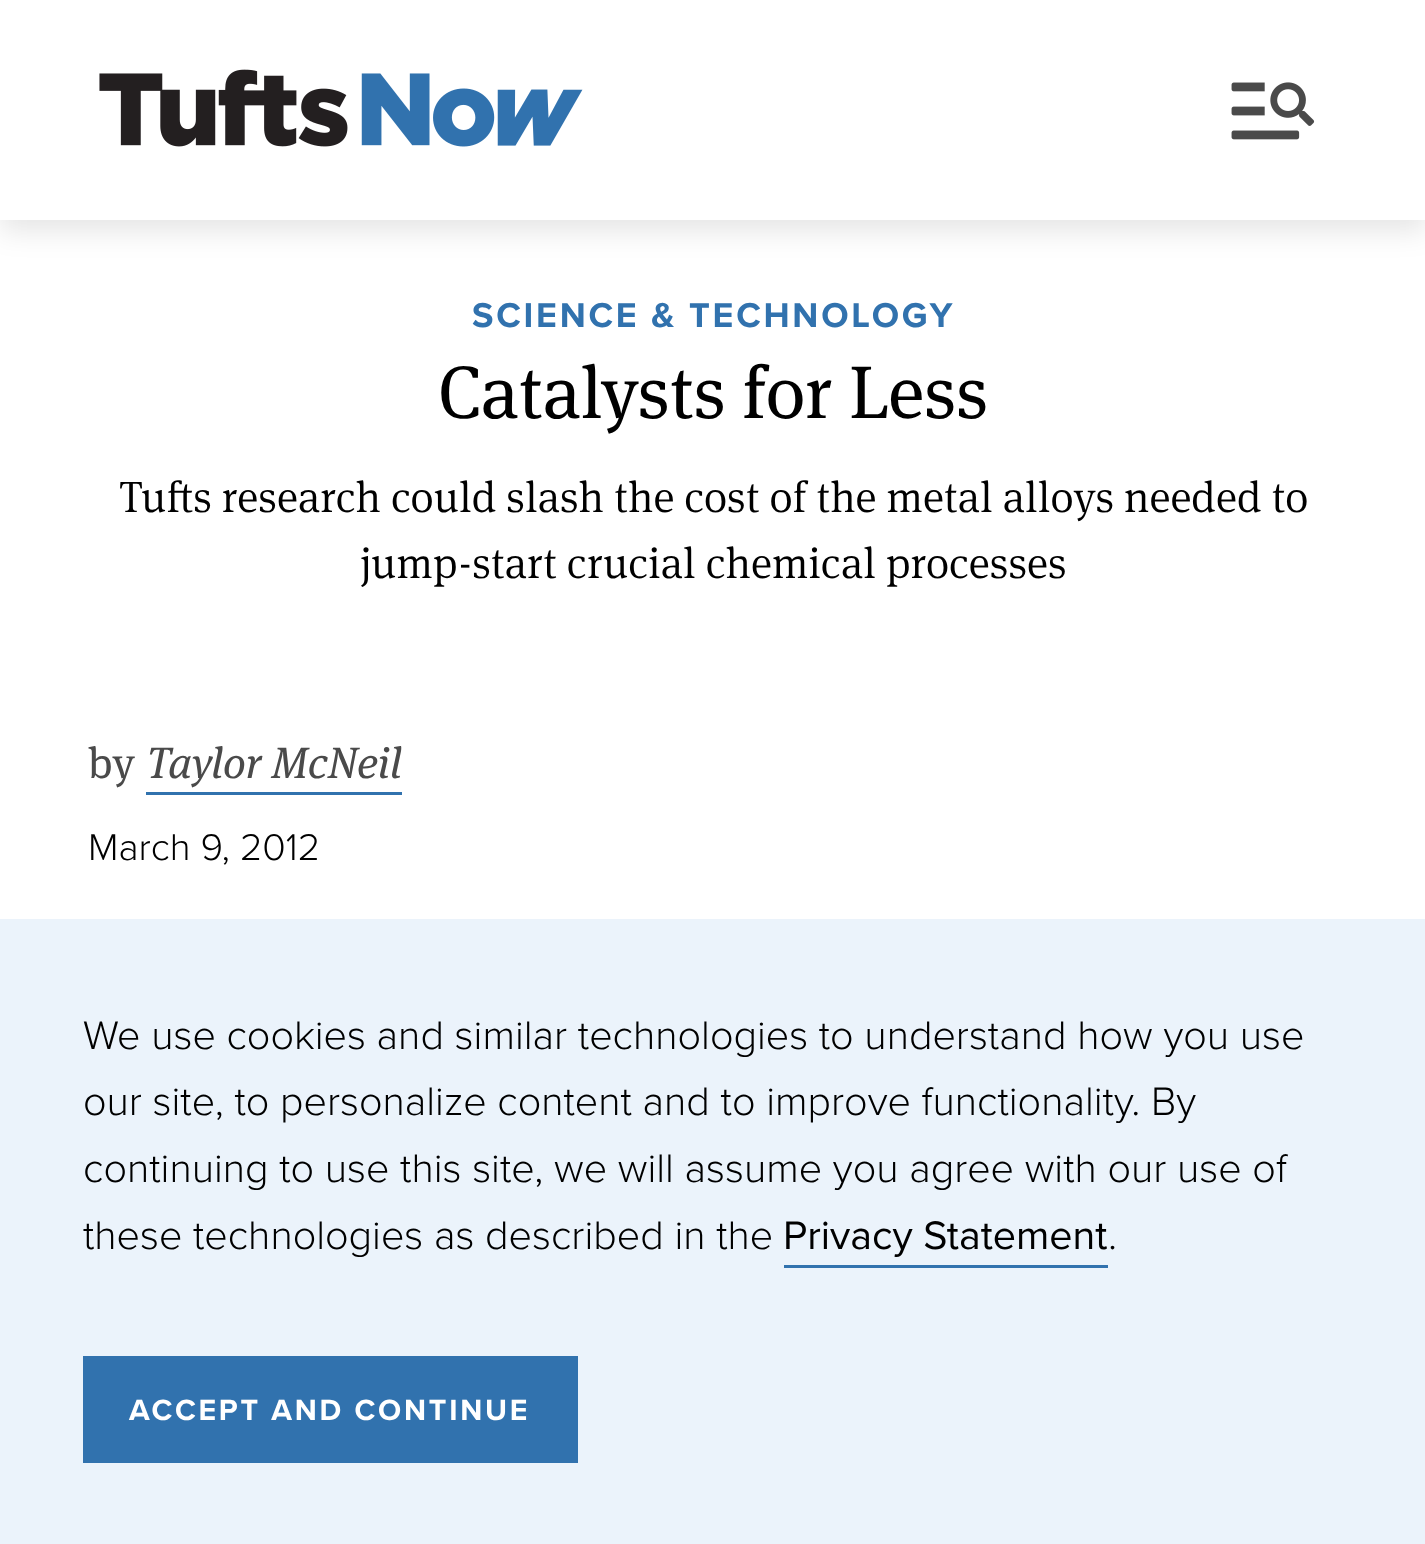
(async () => {
  const canvas = document.querySelector("canvas");
  canvas.width = 1425;
  canvas.height = 1544;
  const ctx = canvas.getContext("2d");
  ctx.miterLimit = 4;
  ctx.fontKerning = "normal";
  async function loadImage(src) {
    const img = new Image();
    img.src = src;
    await img.decode();
    return img;
  }

  ctx.fillStyle = "#ffffff";
  ctx.fillRect(0, 0, 1425, 1544);
  ctx.fillStyle = "rgba(0, 0, 0, 0.1)";
  ctx.filter = "blur(14px)";
  ctx.beginPath();
  ctx.rect(0, 11, 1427, 220);
  ctx.fill();
  ctx.filter = "none";
  ctx.fillStyle = "#ffffff";
  ctx.fillRect(0, 0, 1425, 220);
  ctx.drawImage(await loadImage("img/1.png"), 99, 69, 484, 78);
  ctx.drawImage(await loadImage("img/2.png"), 1231, 82, 84, 58);
  for (const [x, y, w, h, color] of [
    [146, 792, 256, 3, "#3172ae"],
    [0, 919, 1425, 625, "#ebf3fb"],
    [784, 1265, 324, 3, "#3172ae"],
    [83, 1356, 495, 107, "#3172ae"],
  ]) {
    ctx.fillStyle = color;
    ctx.fillRect(x, y, w, h);
  }
  ctx.letterSpacing = "2.75px";
  ctx.font = "bold 35.75px Proxima Nova";
  ctx.fillText("SCIENCE & TECHNOLOGY", 472, 327);
  ctx.letterSpacing = "0px";
  ctx.font = "74.25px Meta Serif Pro";
  ctx.fillStyle = "#000000";
  ctx.fillText("Catalysts for Less", 438, 418);
  ctx.font = "300 44px Meta Serif Pro";
  ctx.fillText("Tufts research could slash the cost of the metal alloys needed to", 119, 512);
  ctx.fillText("jump-start crucial chemical processes", 360, 578);
  ctx.font = "44px Meta Serif Pro";
  ctx.fillStyle = "#4a4a4a";
  ctx.fillText("by", 88, 778);
  ctx.font = "italic 44px Meta Serif Pro";
  ctx.fillText("Taylor McNeil", 146, 778);
  ctx.font = "300 38.5px Proxima Nova";
  ctx.fillStyle = "#000000";
  ctx.fillText("March 9, 2012", 88, 860);
  ctx.font = "300 41.25px Proxima Nova";
  for (const [text, x, y] of [
    ["We use cookies and similar technologies to understand how you use", 83, 1049],
    ["our site, to personalize content and to improve functionality. By", 83, 1115],
    ["continuing to use this site, we will assume you agree with our use of", 83, 1182],
    ["these technologies as described in the", 83, 1249],
  ]) {
    ctx.fillText(text, x, y);
  }
  ctx.font = "41.25px Proxima Nova";
  ctx.fillText("Privacy Statement", 783, 1249);
  ctx.font = "300 41.25px Proxima Nova";
  ctx.fillText(".", 1108, 1249);
  ctx.letterSpacing = "2.75px";
  ctx.font = "bold 30.25px Proxima Nova";
  ctx.fillStyle = "#ffffff";
  ctx.fillText("ACCEPT AND CONTINUE", 129, 1420);
})();
